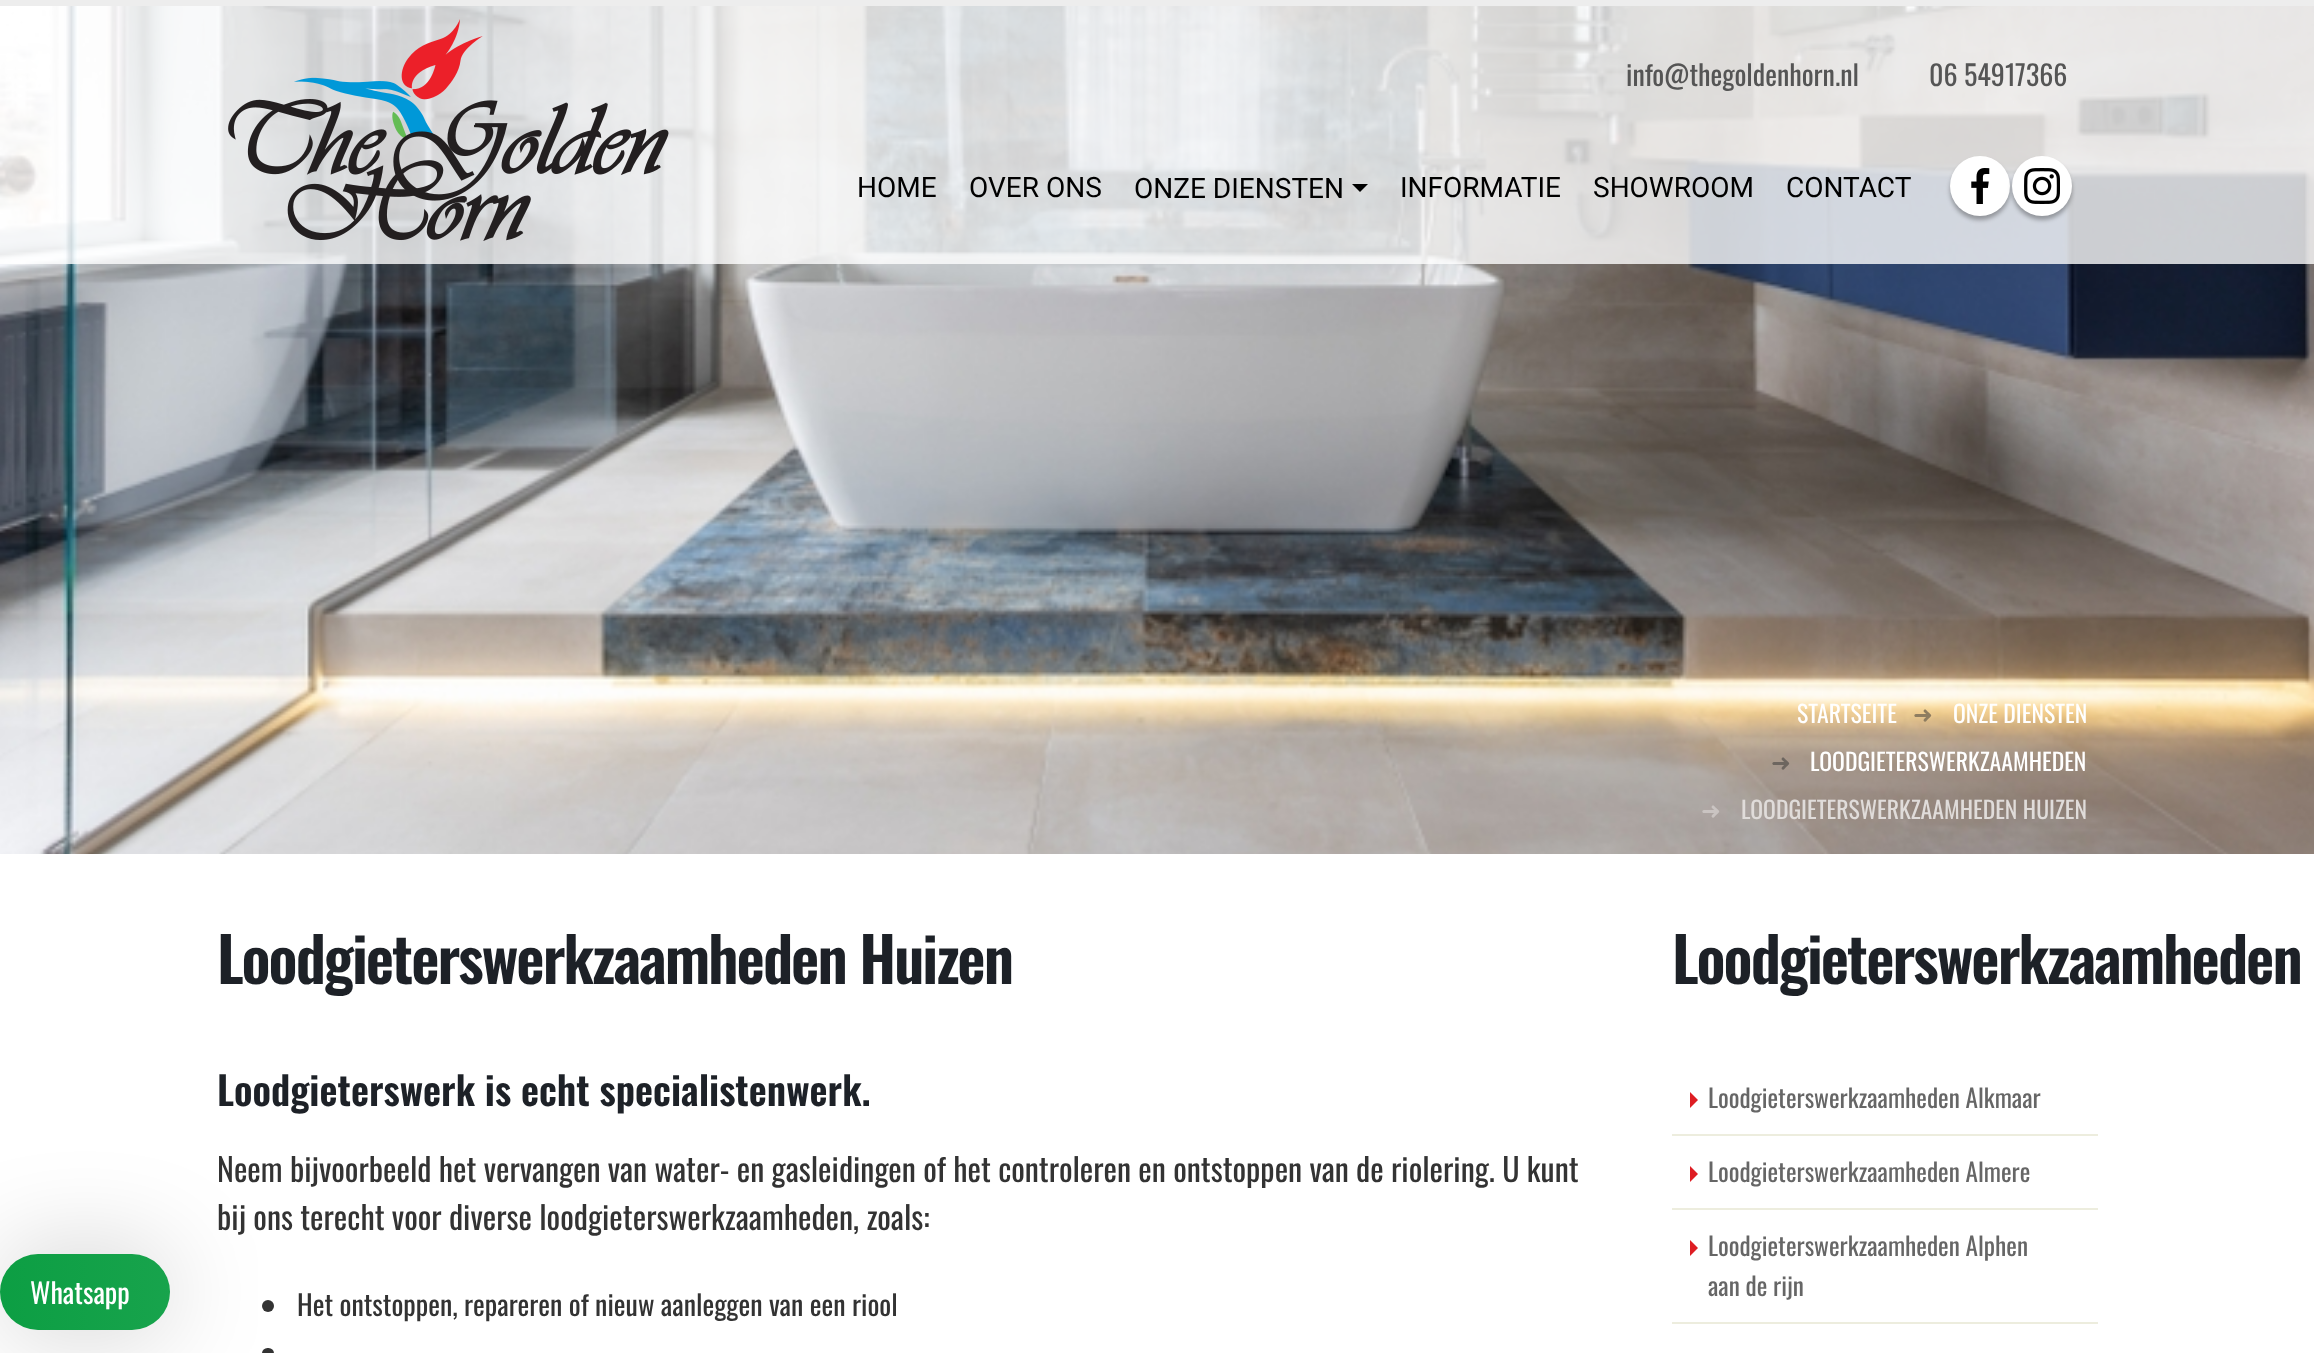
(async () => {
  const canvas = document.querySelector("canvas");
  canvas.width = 2314;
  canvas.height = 1353;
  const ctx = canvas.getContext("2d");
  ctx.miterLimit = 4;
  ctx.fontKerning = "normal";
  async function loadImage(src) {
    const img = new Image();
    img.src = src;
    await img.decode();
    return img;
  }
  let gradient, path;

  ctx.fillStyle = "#ffffff";
  ctx.fillRect(0, 0, 2314, 1353);
  ctx.drawImage(await loadImage("img/4.png"), 0, 6, 2314, 848);
  ctx.fillStyle = "rgba(255, 255, 255, 0.79)";
  ctx.fillRect(0, 6, 2314, 258);
  ctx.fillStyle = "#ededed";
  ctx.fillRect(0, 0, 2314, 6);
  ctx.drawImage(await loadImage("img/1.png"), 228, 19, 441, 222);
  ctx.fillStyle = "#000000";
  path = new Path2D("M1352 184H1368L1360 192Z");
  ctx.fill(path);
  ctx.fillStyle = "rgba(0, 0, 0, 0.3)";
  ctx.filter = "blur(2px)";
  ctx.beginPath();
  ctx.roundRect(1950, 160, 60, 60, 30);
  ctx.fill();
  ctx.filter = "none";
  ctx.fillStyle = "#ffffff";
  ctx.beginPath();
  ctx.arc(1980, 186, 30, 0, Math.PI * 2);
  ctx.fill();
  ctx.drawImage(await loadImage("img/2.png"), 1971, 168, 19, 36);
  ctx.fillStyle = "rgba(0, 0, 0, 0.3)";
  ctx.filter = "blur(2px)";
  ctx.beginPath();
  ctx.roundRect(2012, 160, 60, 60, 30);
  ctx.fill();
  ctx.filter = "none";
  ctx.fillStyle = "#ffffff";
  ctx.beginPath();
  ctx.arc(2042, 186, 30, 0, Math.PI * 2);
  ctx.fill();
  ctx.drawImage(await loadImage("img/3.png"), 2024, 168, 36, 36);
  ctx.fillStyle = "#333333";
  ctx.beginPath();
  ctx.arc(268, 1306, 6, 0, Math.PI * 2);
  ctx.fill();
  ctx.beginPath();
  ctx.roundRect(262, 1348, 12, 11, 6);
  ctx.fill();
  ctx.fillStyle = "rgba(0, 0, 0, 0.2)";
  ctx.filter = "blur(50px)";
  ctx.beginPath();
  ctx.roundRect(0, 1254, 170, 76, 38);
  ctx.fill();
  ctx.filter = "none";
  gradient = ctx.createLinearGradient(-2.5, 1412, 683, 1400);
  gradient.addColorStop(0, "#0c9e43");
  gradient.addColorStop(0.33, "#1ba54f");
  gradient.addColorStop(0.67, "#5ed88c");
  gradient.addColorStop(1, "#077731");
  ctx.fillStyle = gradient;
  ctx.beginPath();
  ctx.roundRect(0, 1254, 170, 76, 38);
  ctx.fill();
  ctx.fillStyle = "#ededde";
  ctx.fillRect(1672, 1134, 426, 2);
  ctx.fillStyle = "#de1d23";
  path = new Path2D("M1690 1108V1092L1698 1100Z");
  ctx.fill(path);
  ctx.fillStyle = "#ededde";
  ctx.fillRect(1672, 1208, 426, 2);
  ctx.fillStyle = "#de1d23";
  path = new Path2D("M1690 1182V1166L1698 1174Z");
  ctx.fill(path);
  ctx.fillStyle = "#ededde";
  ctx.fillRect(1672, 1322, 426, 2);
  ctx.fillStyle = "#de1d23";
  path = new Path2D("M1690 1256V1240L1698 1248Z");
  ctx.fill(path);
  ctx.font = "28px Oswald";
  ctx.fillStyle = "#555555";
  ctx.fillText("info@thegoldenhorn.nl", 1626, 86);
  ctx.fillText("06 54917366", 1929, 86);
  ctx.font = "28px Roboto";
  ctx.fillStyle = "#000000";
  for (const [text, x, y] of [
    ["HOME", 857, 197],
    ["OVER ONS", 969, 197],
    ["ONZE DIENSTEN", 1134, 198],
    ["INFORMATIE", 1400, 197],
    ["SHOWROOM", 1593, 197],
    ["CONTACT", 1786, 197],
  ]) {
    ctx.fillText(text, x, y);
  }
  ctx.font = "23.75px Oswald";
  ctx.fillStyle = "#ffffff";
  ctx.fillText("STARTSEITE", 1797, 723);
  ctx.font = "23.75px DejaVu Sans";
  ctx.fillStyle = "#8e7d60";
  ctx.fillText("➜", 1913, 723);
  ctx.font = "23.75px Oswald";
  ctx.fillStyle = "#ffffff";
  ctx.fillText("ONZE DIENSTEN", 1953, 723);
  ctx.font = "23.75px DejaVu Sans";
  ctx.fillStyle = "#6d665f";
  ctx.fillText("➜", 1771, 771);
  ctx.font = "23.75px Oswald";
  ctx.fillStyle = "#ffffff";
  ctx.fillText("LOODGIETERSWERKZAAMHEDEN", 1810, 771);
  ctx.font = "23.75px DejaVu Sans";
  ctx.fillStyle = "#cac4c2";
  ctx.fillText("➜", 1701, 819);
  ctx.font = "23.75px Oswald";
  ctx.fillStyle = "#e0dcda";
  ctx.fillText("LOODGIETERSWERKZAAMHEDEN HUIZEN", 1741, 819);
  ctx.font = "28px Oswald";
  ctx.fillStyle = "#ffffff";
  ctx.fillText("Whatsapp", 30, 1304);
  ctx.letterSpacing = "-2px";
  ctx.font = "600 61.6px Oswald";
  ctx.fillStyle = "#1d2127";
  ctx.fillText("Loodgieterswerkzaamheden Huizen", 217, 984);
  ctx.letterSpacing = "0px";
  ctx.font = "600 39.25px Oswald";
  ctx.fillText("Loodgieterswerk is echt specialistenwerk.", 217, 1106);
  ctx.font = "32px Oswald";
  ctx.fillStyle = "#333333";
  ctx.fillText("Neem bijvoorbeeld het vervangen van water- en gasleidingen of het controleren en ontstoppen van de riolering. U kunt", 217, 1182);
  ctx.fillText("bij ons terecht voor diverse loodgieterswerkzaamheden, zoals:", 217, 1230);
  ctx.font = "28px Oswald";
  ctx.fillText("Het ontstoppen, repareren of nieuw aanleggen van een riool", 297, 1316);
  ctx.letterSpacing = "-2px";
  ctx.font = "600 61.6px Oswald";
  ctx.fillStyle = "#1d2127";
  ctx.fillText("Loodgieterswerkzaamheden", 1672, 984);
  ctx.letterSpacing = "0px";
  ctx.font = "25.25px Oswald";
  ctx.fillStyle = "#666666";
  for (const [text, x, y] of [
    ["Loodgieterswerkzaamheden Alkmaar", 1708, 1108],
    ["Loodgieterswerkzaamheden Almere", 1708, 1182],
    ["Loodgieterswerkzaamheden Alphen", 1708, 1256],
    ["aan de rijn", 1708, 1296],
  ]) {
    ctx.fillText(text, x, y);
  }
})();
